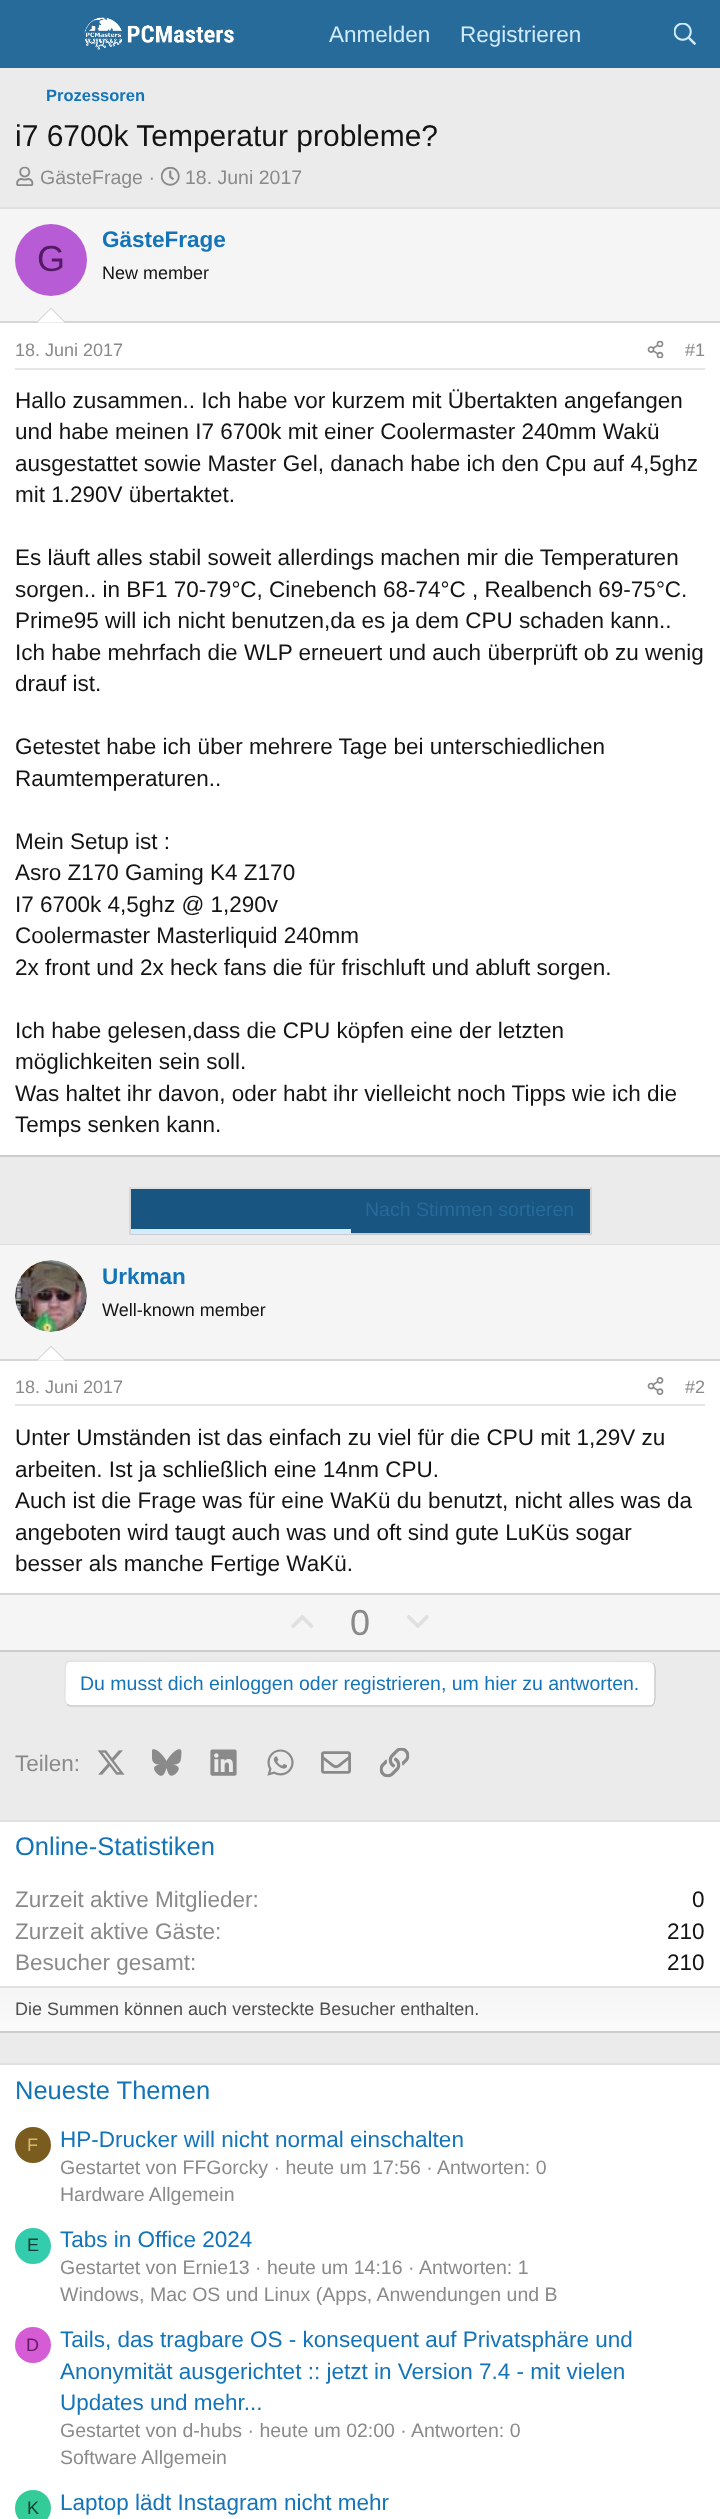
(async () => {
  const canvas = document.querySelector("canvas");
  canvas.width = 720;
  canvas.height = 2519;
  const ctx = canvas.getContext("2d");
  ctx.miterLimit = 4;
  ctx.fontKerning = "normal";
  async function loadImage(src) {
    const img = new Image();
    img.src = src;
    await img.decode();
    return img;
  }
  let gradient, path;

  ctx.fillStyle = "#ebebeb";
  ctx.fillRect(0, 0, 720, 2519);
  ctx.fillStyle = "#276b9b";
  ctx.fillRect(0, 0, 720, 68);
  ctx.drawImage(await loadImage("img/1.png"), 84, 17, 150, 33);
  ctx.drawImage(await loadImage("img/2.png"), 674, 23, 22, 22);
  ctx.drawImage(await loadImage("img/3.png"), 16, 166, 18, 20);
  ctx.drawImage(await loadImage("img/4.png"), 160, 166, 20, 20);
  for (const [x, y, w, h, color] of [
    [0, 323, 720, 832, "#ffffff"],
    [0, 207, 720, 2, "#e0e0e0"],
    [0, 1155, 720, 2, "#cccccc"],
    [0, 209, 720, 112, "#f5f5f5"],
    [0, 321, 720, 2, "#d6d6d6"],
  ]) {
    ctx.fillStyle = color;
    ctx.fillRect(x, y, w, h);
  }
  ctx.fillStyle = "#b85cd6";
  ctx.beginPath();
  ctx.arc(51, 260, 36, 0, Math.PI * 2);
  ctx.fill();
  ctx.fillStyle = "#d6d6d6";
  path = new Path2D("M66 322.5H36L51 307.5Z");
  ctx.fill(path);
  ctx.fillStyle = "#ffffff";
  path = new Path2D("M64.5 322.5H37.5L51 309Z");
  ctx.fill(path);
  ctx.fillStyle = "#e6e6e6";
  ctx.fillRect(15, 368, 690, 2);
  ctx.drawImage(await loadImage("img/5.png"), 647, 340, 17, 19);
  for (const [x, y, w, h, color] of [
    [131, 1189, 459, 44, "#185581"],
    [129, 1187, 462, 2, "#e0e0e0"],
    [590, 1187, 2, 48, "#d6d6d6"],
    [129, 1233, 462, 2, "#cccccc"],
    [129, 1187, 2, 48, "#d6d6d6"],
    [131, 1229, 220, 5, "#d1ebff"],
    [0, 1361, 720, 232, "#ffffff"],
    [0, 1244, 720, 1, "#e0e0e0"],
    [0, 1650, 720, 2, "#cccccc"],
    [0, 1245, 720, 114, "#f5f5f5"],
    [0, 1359, 720, 2, "#d6d6d6"],
  ]) {
    ctx.fillStyle = color;
    ctx.fillRect(x, y, w, h);
  }
  ctx.fillStyle = "#ffffff";
  ctx.beginPath();
  ctx.arc(51, 1296, 36, 0, Math.PI * 2);
  ctx.fill();
  ctx.drawImage(await loadImage("img/6.png"), 15, 1260, 72, 72);
  ctx.fillStyle = "#d6d6d6";
  path = new Path2D("M66 1360.5H36L51 1345.5Z");
  ctx.fill(path);
  ctx.fillStyle = "#ffffff";
  path = new Path2D("M64.5 1360.5H37.5L51 1347Z");
  ctx.fill(path);
  ctx.fillStyle = "#e6e6e6";
  ctx.fillRect(15, 1404, 690, 2);
  ctx.drawImage(await loadImage("img/7.png"), 647, 1377, 17, 18);
  ctx.fillStyle = "#f5f5f5";
  ctx.fillRect(0, 1595, 720, 55);
  ctx.fillStyle = "#d6d6d6";
  ctx.fillRect(0, 1593, 720, 2);
  ctx.drawImage(await loadImage("img/8.png"), 291, 1615, 23, 13);
  ctx.drawImage(await loadImage("img/9.png"), 407, 1615, 22, 13);
  ctx.fillStyle = "#ffffff";
  ctx.beginPath();
  ctx.roundRect(65, 1661, 591, 46, 6);
  ctx.fill();
  path = new Path2D("M653 1663C656.5 1666 655 1674.5 655 1678V1695C655 1699.5 655.5 1706 649.5 1706H70L67 1704.5");
  ctx.strokeStyle = "#c9c9c9";
  ctx.lineWidth = 1.5;
  ctx.stroke(path);
  path = new Path2D("M67 1704.5C63.5 1701.5 65 1693 65 1689.5V1672C65 1668 64.5 1661.5 70.5 1661L650 1661.5L653 1663");
  ctx.strokeStyle = "#e3e3e3";
  ctx.stroke(path);
  ctx.drawImage(await loadImage("img/10.png"), 97, 1750, 28, 25);
  ctx.drawImage(await loadImage("img/11.png"), 152, 1749, 30, 27);
  ctx.drawImage(await loadImage("img/12.png"), 210, 1749, 27, 27);
  ctx.drawImage(await loadImage("img/13.png"), 267, 1749, 27, 27);
  ctx.drawImage(await loadImage("img/14.png"), 321, 1751, 30, 23);
  ctx.drawImage(await loadImage("img/15.png"), 379, 1747, 31, 31);
  for (const [x, y, w, h, color] of [
    [0, 1822, 720, 164, "#ffffff"],
    [0, 1820, 720, 2, "#e0e0e0"],
    [0, 2031, 720, 2, "#cccccc"],
  ]) {
    ctx.fillStyle = color;
    ctx.fillRect(x, y, w, h);
  }
  gradient = ctx.createLinearGradient(360, 1988, 360, 2031);
  gradient.addColorStop(0, "#f5f5f5");
  gradient.addColorStop(1, "#fafafa");
  ctx.fillStyle = gradient;
  ctx.fillRect(0, 1988, 720, 43);
  for (const [x, y, w, h, color] of [
    [0, 1986, 720, 2, "#e0e0e0"],
    [0, 2065, 720, 454, "#ffffff"],
    [0, 2063, 720, 2, "#e0e0e0"],
  ]) {
    ctx.fillStyle = color;
    ctx.fillRect(x, y, w, h);
  }
  ctx.fillStyle = "#7a5c1f";
  ctx.beginPath();
  ctx.arc(33, 2145, 18, 0, Math.PI * 2);
  ctx.fill();
  ctx.fillStyle = "#33ccad";
  ctx.beginPath();
  ctx.arc(33, 2246, 18, 0, Math.PI * 2);
  ctx.fill();
  ctx.fillStyle = "#d65cd6";
  ctx.beginPath();
  ctx.arc(33, 2345, 18, 0, Math.PI * 2);
  ctx.fill();
  ctx.fillStyle = "#33cc99";
  ctx.beginPath();
  ctx.arc(33, 2508, 18, 0, Math.PI * 2);
  ctx.fill();
  ctx.font = "22.5px Liberation Sans";
  ctx.fillStyle = "#d1ebff";
  ctx.fillText("Anmelden", 329, 42);
  ctx.fillText("Registrieren", 460, 42);
  ctx.font = "bold 16.5px Liberation Sans";
  ctx.fillStyle = "#1474b8";
  ctx.fillText("Prozessoren", 46, 101);
  ctx.font = "30px Liberation Sans";
  ctx.fillStyle = "#141414";
  ctx.fillText("i7 6700k Temperatur probleme?", 15, 146);
  ctx.font = "19.5px Liberation Sans";
  ctx.fillStyle = "#8a8a8a";
  ctx.fillText("GästeFrage ·", 40, 184);
  ctx.fillText("18. Juni 2017", 185, 184);
  ctx.font = "36px Liberation Sans";
  ctx.fillStyle = "#531a66";
  ctx.fillText("G", 37, 271);
  ctx.font = "bold 22.5px Liberation Sans";
  ctx.fillStyle = "#1474b8";
  ctx.fillText("GästeFrage", 102, 247);
  ctx.font = "18px Liberation Sans";
  ctx.fillStyle = "#141414";
  ctx.fillText("New member", 102, 279);
  ctx.fillStyle = "#8a8a8a";
  ctx.fillText("18. Juni 2017", 15, 356);
  ctx.fillText("#1", 685, 356);
  ctx.font = "22.5px Liberation Sans";
  ctx.fillStyle = "#141414";
  for (const [text, x, y] of [
    ["Hallo zusammen.. Ich habe vor kurzem mit Übertakten angefangen", 15, 408],
    ["und habe meinen I7 6700k mit einer Coolermaster 240mm Wakü", 15, 439],
    ["ausgestattet sowie Master Gel, danach habe ich den Cpu auf 4,5ghz", 15, 471],
    ["mit 1.290V übertaktet.", 15, 502],
    ["Es läuft alles stabil soweit allerdings machen mir die Temperaturen", 15, 565],
    ["sorgen.. in BF1 70-79°C, Cinebench 68-74°C , Realbench 69-75°C.", 15, 597],
    ["Prime95 will ich nicht benutzen,da es ja dem CPU schaden kann..", 15, 628],
    ["Ich habe mehrfach die WLP erneuert und auch überprüft ob zu wenig", 15, 660],
    ["drauf ist.", 15, 691],
    ["Getestet habe ich über mehrere Tage bei unterschiedlichen", 15, 754],
    ["Raumtemperaturen..", 15, 786],
    ["Mein Setup ist :", 15, 849],
    ["Asro Z170 Gaming K4 Z170", 15, 880],
    ["I7 6700k 4,5ghz @ 1,290v", 15, 912],
    ["Coolermaster Masterliquid 240mm", 15, 943],
    ["2x front und 2x heck fans die für frischluft und abluft sorgen.", 15, 975],
    ["Ich habe gelesen,dass die CPU köpfen eine der letzten", 15, 1038],
    ["möglichkeiten sein soll.", 15, 1069],
    ["Was haltet ihr davon, oder habt ihr vielleicht noch Tipps wie ich die", 15, 1101],
    ["Temps senken kann.", 15, 1132],
  ]) {
    ctx.fillText(text, x, y);
  }
  ctx.font = "19.5px Liberation Sans";
  ctx.fillStyle = "#276b9b";
  ctx.fillText("Nach Stimmen sortieren", 365, 1216);
  ctx.font = "bold 22.5px Liberation Sans";
  ctx.fillStyle = "#1474b8";
  ctx.fillText("Urkman", 102, 1284);
  ctx.font = "18px Liberation Sans";
  ctx.fillStyle = "#141414";
  ctx.fillText("Well-known member", 102, 1316);
  ctx.fillStyle = "#8a8a8a";
  ctx.fillText("18. Juni 2017", 15, 1393);
  ctx.fillText("#2", 685, 1393);
  ctx.font = "22.5px Liberation Sans";
  ctx.fillStyle = "#141414";
  for (const [text, x, y] of [
    ["Unter Umständen ist das einfach zu viel für die CPU mit 1,29V zu", 15, 1445],
    ["arbeiten. Ist ja schließlich eine 14nm CPU.", 15, 1477],
    ["Auch ist die Frage was für eine WaKü du benutzt, nicht alles was da", 15, 1508],
    ["angeboten wird taugt auch was und oft sind gute LuKüs sogar", 15, 1540],
    ["besser als manche Fertige WaKü.", 15, 1571],
  ]) {
    ctx.fillText(text, x, y);
  }
  ctx.font = "36px Liberation Sans";
  ctx.fillStyle = "#8a8a8a";
  ctx.fillText("0", 350, 1635);
  ctx.font = "19.5px Liberation Sans";
  ctx.fillStyle = "#1474b8";
  ctx.fillText("Du musst dich einloggen oder registrieren, um hier zu antworten.", 80, 1690);
  ctx.font = "22.5px Liberation Sans";
  ctx.fillStyle = "#8a8a8a";
  ctx.fillText("Teilen:", 15, 1771);
  ctx.font = "25.5px Liberation Sans";
  ctx.fillStyle = "#1474b8";
  ctx.fillText("Online-Statistiken", 15, 1855);
  ctx.font = "22.5px Liberation Sans";
  ctx.fillStyle = "#8a8a8a";
  ctx.fillText("Zurzeit aktive Mitglieder:", 15, 1907);
  ctx.fillStyle = "#141414";
  ctx.fillText("0", 692, 1907);
  ctx.fillStyle = "#8a8a8a";
  ctx.fillText("Zurzeit aktive Gäste:", 15, 1939);
  ctx.fillStyle = "#141414";
  ctx.fillText("210", 667, 1939);
  ctx.fillStyle = "#8a8a8a";
  ctx.fillText("Besucher gesamt:", 15, 1970);
  ctx.fillStyle = "#141414";
  ctx.fillText("210", 667, 1970);
  ctx.font = "18px Liberation Sans";
  ctx.fillStyle = "#4f4f4f";
  ctx.fillText("Die Summen können auch versteckte Besucher enthalten.", 15, 2015);
  ctx.font = "25.5px Liberation Sans";
  ctx.fillStyle = "#1474b8";
  ctx.fillText("Neueste Themen", 15, 2099);
  ctx.font = "18px Liberation Sans";
  ctx.fillStyle = "#dbb870";
  ctx.fillText("F", 27, 2151);
  ctx.font = "22.5px Liberation Sans";
  ctx.fillStyle = "#1474b8";
  ctx.fillText("HP-Drucker will nicht normal einschalten", 60, 2147);
  ctx.font = "19.5px Liberation Sans";
  ctx.fillStyle = "#8a8a8a";
  for (const [text, x, y] of [
    ["Gestartet von FFGorcky · heute um 17:56 ·", 60, 2174],
    ["Antworten: 0", 437, 2174],
    ["Hardware Allgemein", 60, 2201],
  ]) {
    ctx.fillText(text, x, y);
  }
  ctx.font = "18px Liberation Sans";
  ctx.fillStyle = "#0f3d34";
  ctx.fillText("E", 27, 2251);
  ctx.font = "22.5px Liberation Sans";
  ctx.fillStyle = "#1474b8";
  ctx.fillText("Tabs in Office 2024", 60, 2247);
  ctx.font = "19.5px Liberation Sans";
  ctx.fillStyle = "#8a8a8a";
  for (const [text, x, y] of [
    ["Gestartet von Ernie13 · heute um 14:16 ·", 60, 2274],
    ["Antworten: 1", 419, 2274],
    ["Windows, Mac OS und Linux (Apps, Anwendungen und B", 60, 2301],
  ]) {
    ctx.fillText(text, x, y);
  }
  ctx.font = "18px Liberation Sans";
  ctx.fillStyle = "#661a66";
  ctx.fillText("D", 26, 2351);
  ctx.font = "22.5px Liberation Sans";
  ctx.fillStyle = "#1474b8";
  for (const [text, x, y] of [
    ["Tails, das tragbare OS - konsequent auf Privatsphäre und", 60, 2347],
    ["Anonymität ausgerichtet :: jetzt in Version 7.4 - mit vielen", 60, 2379],
    ["Updates und mehr...", 60, 2410],
  ]) {
    ctx.fillText(text, x, y);
  }
  ctx.font = "19.5px Liberation Sans";
  ctx.fillStyle = "#8a8a8a";
  for (const [text, x, y] of [
    ["Gestartet von d-hubs · heute um 02:00 ·", 60, 2437],
    ["Antworten: 0", 411, 2437],
    ["Software Allgemein", 60, 2464],
  ]) {
    ctx.fillText(text, x, y);
  }
  ctx.font = "18px Liberation Sans";
  ctx.fillStyle = "#0f3d2e";
  ctx.fillText("K", 27, 2514);
  ctx.font = "22.5px Liberation Sans";
  ctx.fillStyle = "#1474b8";
  ctx.fillText("Laptop lädt Instagram nicht mehr", 60, 2510);
})();
